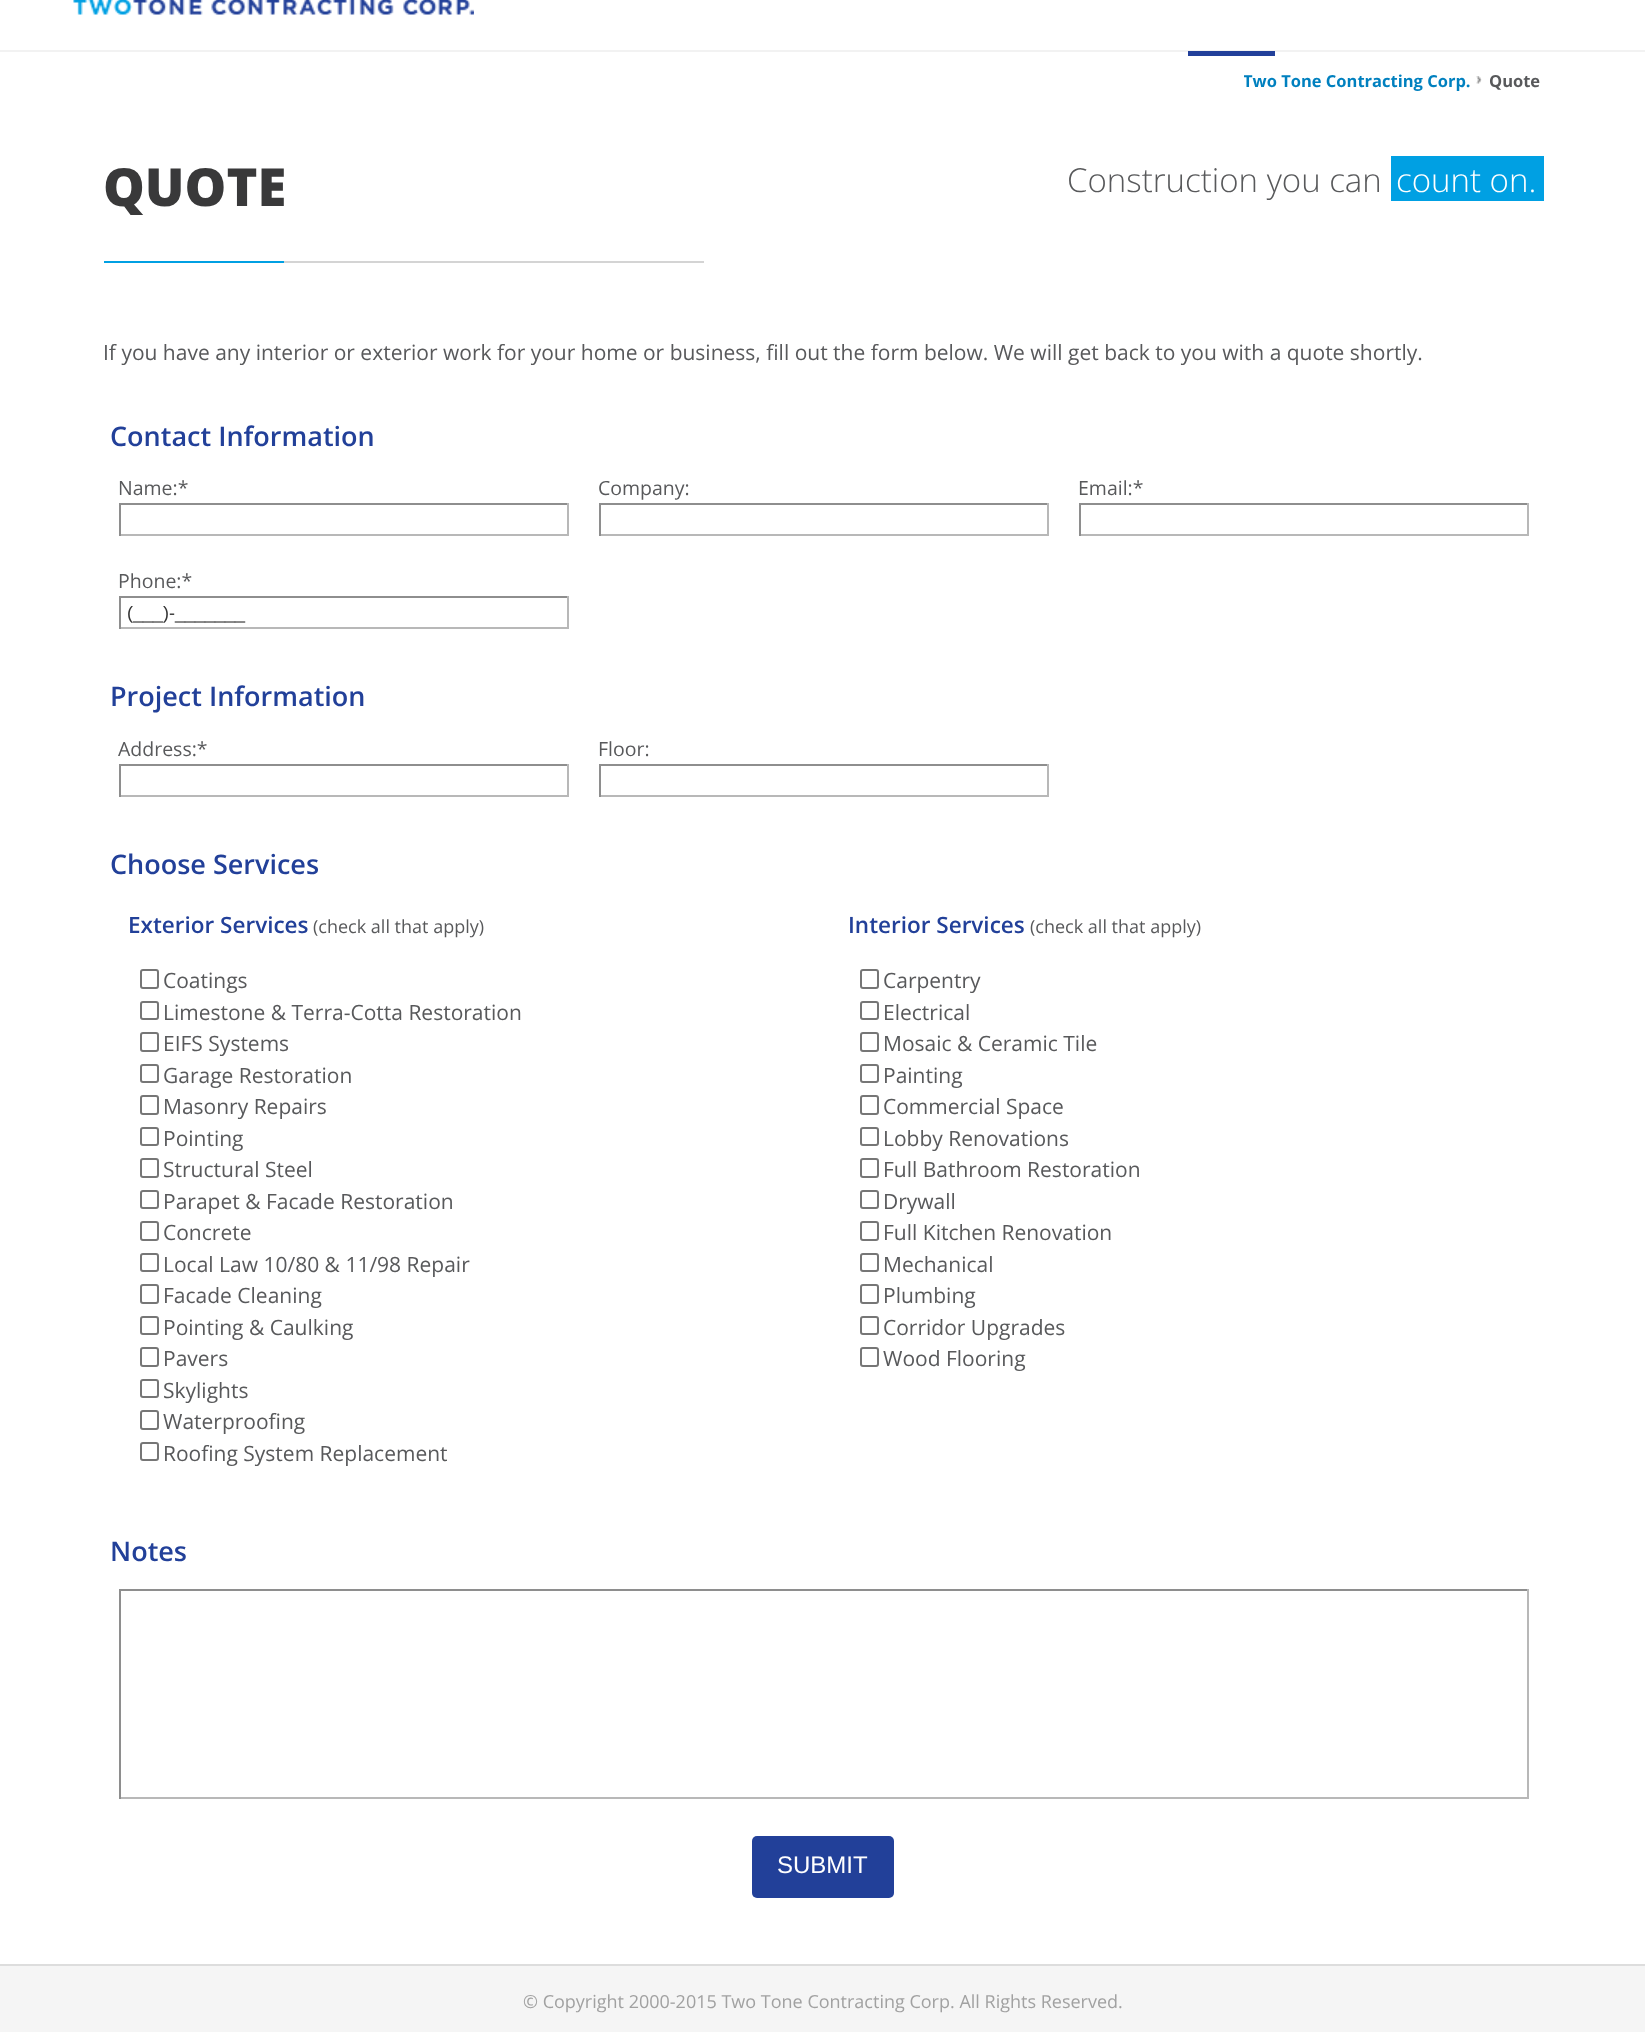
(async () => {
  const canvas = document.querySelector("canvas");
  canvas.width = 1645;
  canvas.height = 2032;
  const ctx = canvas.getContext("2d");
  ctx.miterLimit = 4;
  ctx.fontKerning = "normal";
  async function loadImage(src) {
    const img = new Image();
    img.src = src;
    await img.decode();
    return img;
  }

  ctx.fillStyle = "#ffffff";
  ctx.fillRect(0, 0, 1645, 2032);
  ctx.fillStyle = "#f2f2f2";
  ctx.fillRect(0, 50, 1645, 2);
  ctx.drawImage(await loadImage("img/1.png"), 73, 0, 401, 15);
  ctx.fillStyle = "#22409a";
  ctx.fillRect(1188, 51, 87, 5);
  ctx.drawImage(await loadImage("img/2.png"), 1476, 76, 6, 8);
  for (const [x, y, w, h, color] of [
    [104, 261, 180, 2, "#00a0e3"],
    [284, 261, 420, 2, "#d4d4d4"],
    [1391, 156, 153, 45, "#00a0e3"],
    [119, 503, 450, 2, "#8e8e8e"],
    [567, 503, 2, 33, "#b8b8b8"],
    [119, 534, 450, 2, "#b8b8b8"],
    [119, 503, 2, 33, "#8e8e8e"],
    [599, 503, 450, 2, "#8e8e8e"],
    [1047, 503, 2, 33, "#b8b8b8"],
    [599, 534, 450, 2, "#b8b8b8"],
    [599, 503, 2, 33, "#8e8e8e"],
    [1079, 503, 450, 2, "#8e8e8e"],
    [1527, 503, 2, 33, "#b8b8b8"],
    [1079, 534, 450, 2, "#b8b8b8"],
    [1079, 503, 2, 33, "#8e8e8e"],
    [119, 596, 450, 2, "#8e8e8e"],
    [567, 596, 2, 33, "#b8b8b8"],
    [119, 627, 450, 2, "#b8b8b8"],
    [119, 596, 2, 33, "#8e8e8e"],
    [119, 764, 450, 2, "#8e8e8e"],
    [567, 764, 2, 33, "#b8b8b8"],
    [119, 795, 450, 2, "#b8b8b8"],
    [119, 764, 2, 33, "#8e8e8e"],
    [599, 764, 450, 2, "#8e8e8e"],
    [1047, 764, 2, 33, "#b8b8b8"],
    [599, 795, 450, 2, "#b8b8b8"],
    [599, 764, 2, 33, "#8e8e8e"],
  ]) {
    ctx.fillStyle = color;
    ctx.fillRect(x, y, w, h);
  }
  ctx.beginPath();
  ctx.roundRect(141, 970, 17, 18, 2);
  ctx.strokeStyle = "#767676";
  ctx.lineWidth = 2;
  ctx.stroke();
  ctx.beginPath();
  ctx.roundRect(141, 1002, 17, 17, 2);
  ctx.stroke();
  ctx.beginPath();
  ctx.roundRect(141, 1033, 17, 18, 2);
  ctx.stroke();
  ctx.beginPath();
  ctx.roundRect(141, 1065, 17, 17, 2);
  ctx.stroke();
  ctx.beginPath();
  ctx.roundRect(141, 1096, 17, 18, 2);
  ctx.stroke();
  ctx.beginPath();
  ctx.roundRect(141, 1128, 17, 17, 2);
  ctx.stroke();
  ctx.beginPath();
  ctx.roundRect(141, 1159, 17, 18, 2);
  ctx.stroke();
  ctx.beginPath();
  ctx.roundRect(141, 1191, 17, 17, 2);
  ctx.stroke();
  ctx.beginPath();
  ctx.roundRect(141, 1222, 17, 18, 2);
  ctx.stroke();
  ctx.beginPath();
  ctx.roundRect(141, 1254, 17, 17, 2);
  ctx.stroke();
  ctx.beginPath();
  ctx.roundRect(141, 1285, 17, 18, 2);
  ctx.stroke();
  ctx.beginPath();
  ctx.roundRect(141, 1317, 17, 17, 2);
  ctx.stroke();
  ctx.beginPath();
  ctx.roundRect(141, 1348, 17, 18, 2);
  ctx.stroke();
  ctx.beginPath();
  ctx.roundRect(141, 1380, 17, 17, 2);
  ctx.stroke();
  ctx.beginPath();
  ctx.roundRect(141, 1411, 17, 18, 2);
  ctx.stroke();
  ctx.beginPath();
  ctx.roundRect(141, 1443, 17, 17, 2);
  ctx.stroke();
  ctx.beginPath();
  ctx.roundRect(861, 970, 17, 18, 2);
  ctx.stroke();
  ctx.beginPath();
  ctx.roundRect(861, 1002, 17, 17, 2);
  ctx.stroke();
  ctx.beginPath();
  ctx.roundRect(861, 1033, 17, 18, 2);
  ctx.stroke();
  ctx.beginPath();
  ctx.roundRect(861, 1065, 17, 17, 2);
  ctx.stroke();
  ctx.beginPath();
  ctx.roundRect(861, 1096, 17, 18, 2);
  ctx.stroke();
  ctx.beginPath();
  ctx.roundRect(861, 1128, 17, 17, 2);
  ctx.stroke();
  ctx.beginPath();
  ctx.roundRect(861, 1159, 17, 18, 2);
  ctx.stroke();
  ctx.beginPath();
  ctx.roundRect(861, 1191, 17, 17, 2);
  ctx.stroke();
  ctx.beginPath();
  ctx.roundRect(861, 1222, 17, 18, 2);
  ctx.stroke();
  ctx.beginPath();
  ctx.roundRect(861, 1254, 17, 17, 2);
  ctx.stroke();
  ctx.beginPath();
  ctx.roundRect(861, 1285, 17, 18, 2);
  ctx.stroke();
  ctx.beginPath();
  ctx.roundRect(861, 1317, 17, 17, 2);
  ctx.stroke();
  ctx.beginPath();
  ctx.roundRect(861, 1348, 17, 18, 2);
  ctx.stroke();
  for (const [x, y, w, h, color] of [
    [119, 1589, 1410, 2, "#8e8e8e"],
    [1527, 1589, 2, 210, "#b8b8b8"],
    [119, 1797, 1410, 2, "#b8b8b8"],
    [119, 1589, 2, 210, "#8e8e8e"],
  ]) {
    ctx.fillStyle = color;
    ctx.fillRect(x, y, w, h);
  }
  ctx.fillStyle = "#224099";
  ctx.beginPath();
  ctx.roundRect(752, 1836, 142, 62, 5);
  ctx.fill();
  ctx.fillStyle = "#f5f5f5";
  ctx.fillRect(0, 1966, 1645, 66);
  ctx.fillStyle = "#dddddd";
  ctx.fillRect(0, 1964, 1645, 2);
  ctx.save();
  ctx.beginPath();
  ctx.rect(1244, 51, 297, 45);
  ctx.clip();
  ctx.font = "bold 16.5px Open Sans";
  ctx.fillStyle = "#0080bf";
  ctx.fillText("Two Tone Contracting Corp.", 1243, 87);
  ctx.restore();
  ctx.font = "bold 16.5px Open Sans";
  ctx.fillStyle = "#58595b";
  ctx.fillText("Quote", 1489, 87);
  ctx.font = "800 52.5px Open Sans";
  ctx.fillStyle = "#39393a";
  ctx.fillText("QUOTE", 103, 206);
  ctx.font = "300 33px Open Sans";
  ctx.fillStyle = "#58595b";
  ctx.fillText("Construction you can", 1067, 192);
  ctx.fillStyle = "#ffffff";
  ctx.fillText("count on.", 1396, 192);
  ctx.font = "21px Open Sans";
  ctx.fillStyle = "#58595b";
  ctx.fillText("If you have any interior or exterior work for your home or business, fill out the form below. We will get back to you with a quote shortly.", 103, 360);
  ctx.font = "600 27px Open Sans";
  ctx.fillStyle = "#224099";
  ctx.fillText("Contact Information", 110, 446);
  ctx.font = "19.5px Open Sans";
  ctx.fillStyle = "#58595b";
  for (const [text, x, y] of [
    ["Name:*", 118, 495],
    ["Company:", 598, 495],
    ["Email:*", 1078, 495],
    ["Phone:*", 118, 588],
  ]) {
    ctx.fillText(text, x, y);
  }
  ctx.font = "18px Liberation Sans";
  ctx.fillStyle = "#333333";
  ctx.fillText("(___)-_______", 127, 619);
  ctx.font = "600 27px Open Sans";
  ctx.fillStyle = "#224099";
  ctx.fillText("Project Information", 110, 706);
  ctx.font = "19.5px Open Sans";
  ctx.fillStyle = "#58595b";
  ctx.fillText("Address:*", 118, 756);
  ctx.fillText("Floor:", 598, 756);
  ctx.font = "600 27px Open Sans";
  ctx.fillStyle = "#224099";
  ctx.fillText("Choose Services", 110, 874);
  ctx.font = "600 22.5px Open Sans";
  ctx.fillText("Exterior Services", 128, 933);
  ctx.font = "18px Open Sans";
  ctx.fillStyle = "#58595b";
  ctx.fillText("(check all that apply)", 313, 933);
  ctx.font = "21px Open Sans";
  for (const [text, x, y] of [
    ["Coatings", 163, 988],
    ["Limestone & Terra-Cotta Restoration", 163, 1020],
    ["EIFS Systems", 163, 1051],
    ["Garage Restoration", 163, 1083],
    ["Masonry Repairs", 163, 1114],
    ["Pointing", 163, 1146],
    ["Structural Steel", 163, 1177],
    ["Parapet & Facade Restoration", 163, 1209],
    ["Concrete", 163, 1240],
    ["Local Law 10/80 & 11/98 Repair", 163, 1272],
    ["Facade Cleaning", 163, 1303],
    ["Pointing & Caulking", 163, 1335],
    ["Pavers", 163, 1366],
    ["Skylights", 163, 1398],
    ["Waterproofing", 163, 1429],
    ["Roofing System Replacement", 163, 1461],
  ]) {
    ctx.fillText(text, x, y);
  }
  ctx.font = "600 22.5px Open Sans";
  ctx.fillStyle = "#224099";
  ctx.fillText("Interior Services", 848, 933);
  ctx.font = "18px Open Sans";
  ctx.fillStyle = "#58595b";
  ctx.fillText("(check all that apply)", 1030, 933);
  ctx.font = "21px Open Sans";
  for (const [text, x, y] of [
    ["Carpentry", 883, 988],
    ["Electrical", 883, 1020],
    ["Mosaic & Ceramic Tile", 883, 1051],
    ["Painting", 883, 1083],
    ["Commercial Space", 883, 1114],
    ["Lobby Renovations", 883, 1146],
    ["Full Bathroom Restoration", 883, 1177],
    ["Drywall", 883, 1209],
    ["Full Kitchen Renovation", 883, 1240],
    ["Mechanical", 883, 1272],
    ["Plumbing", 883, 1303],
    ["Corridor Upgrades", 883, 1335],
    ["Wood Flooring", 883, 1366],
  ]) {
    ctx.fillText(text, x, y);
  }
  ctx.font = "600 27px Open Sans";
  ctx.fillStyle = "#224099";
  ctx.fillText("Notes", 110, 1561);
  ctx.font = "24px Liberation Sans";
  ctx.fillStyle = "#ffffff";
  ctx.fillText("SUBMIT", 777, 1873);
  ctx.font = "18px Open Sans";
  ctx.fillStyle = "#a1a1a1";
  ctx.fillText("© Copyright 2000-2015 Two Tone Contracting Corp. All Rights Reserved.", 523, 2008);
})();
